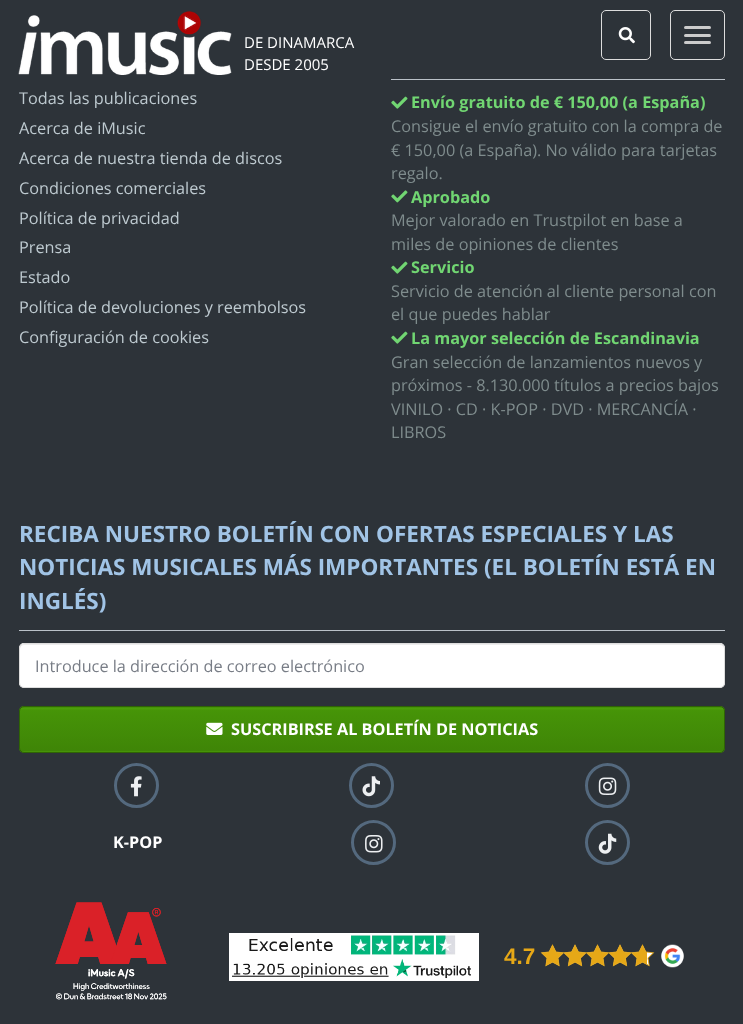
(async () => {
  const canvas = document.querySelector("canvas");
  canvas.width = 743;
  canvas.height = 1024;
  const ctx = canvas.getContext("2d");
  ctx.miterLimit = 4;
  ctx.fontKerning = "normal";
  async function loadImage(src) {
    const img = new Image();
    img.src = src;
    await img.decode();
    return img;
  }
  let gradient, path;

  ctx.fillStyle = "#2d3339";
  ctx.fillRect(0, 0, 743, 1024);
  ctx.drawImage(await loadImage("img/1.png"), 18, 11, 214, 64);
  ctx.beginPath();
  ctx.roundRect(601.5, 10.5, 49, 49, 4.5);
  ctx.strokeStyle = "#dddddd";
  ctx.stroke();
  ctx.drawImage(await loadImage("img/2.png"), 618, 27, 17, 17);
  ctx.beginPath();
  ctx.roundRect(670.5, 10.5, 54, 49, 4.5);
  ctx.stroke();
  ctx.fillStyle = "#cccccc";
  ctx.beginPath();
  ctx.roundRect(684, 26, 27, 3, 1.5);
  ctx.fill();
  ctx.beginPath();
  ctx.roundRect(684, 34, 27, 3, 1.5);
  ctx.fill();
  ctx.beginPath();
  ctx.roundRect(684, 41, 27, 3, 1.5);
  ctx.fill();
  ctx.fillStyle = "#bac1c8";
  ctx.fillRect(391, 79, 334, 1);
  ctx.drawImage(await loadImage("img/3.png"), 391, 96, 17, 13);
  ctx.drawImage(await loadImage("img/4.png"), 391, 190, 17, 13);
  ctx.drawImage(await loadImage("img/3.png"), 391, 261, 17, 13);
  ctx.drawImage(await loadImage("img/3.png"), 391, 331, 17, 13);
  ctx.fillRect(19, 630, 706, 1);
  ctx.fillStyle = "#ffffff";
  ctx.beginPath();
  ctx.roundRect(19, 643, 706, 45, 5);
  ctx.fill();
  ctx.fillStyle = "#ececec";
  path = new Path2D("M24 645H720C722 645 724 647 724 649C724 646 723 644 720 644H24L21 645L20 646V649C20 647 22 645 24 645Z");
  ctx.fill(path);
  ctx.beginPath();
  ctx.roundRect(19.5, 643.5, 705, 44, 4.5);
  ctx.stroke();
  ctx.fillStyle = "#469408";
  ctx.beginPath();
  ctx.roundRect(19, 706, 706, 47, 5);
  ctx.fill();
  gradient = ctx.createLinearGradient(372, 708, 372, 751);
  gradient.addColorStop(0, "#4da309");
  gradient.addColorStop(0.06, "#469408");
  gradient.addColorStop(1, "#3f8507");
  ctx.fillStyle = gradient;
  ctx.fillRect(20, 708, 704, 43);
  ctx.beginPath();
  ctx.roundRect(19.5, 706.5, 705, 46, 4.5);
  ctx.strokeStyle = "#2f6405";
  ctx.stroke();
  ctx.drawImage(await loadImage("img/5.png"), 206, 722, 17, 13);
  ctx.beginPath();
  ctx.arc(136.5, 785.5, 21, 0, Math.PI * 2);
  ctx.strokeStyle = "#54697e";
  ctx.lineWidth = 3;
  ctx.stroke();
  ctx.drawImage(await loadImage("img/6.png"), 130, 776, 12, 21);
  ctx.beginPath();
  ctx.arc(371.5, 785.5, 21, 0, Math.PI * 2);
  ctx.stroke();
  ctx.drawImage(await loadImage("img/7.png"), 362, 776, 18, 21);
  ctx.beginPath();
  ctx.arc(607.5, 785.5, 21, 0, Math.PI * 2);
  ctx.stroke();
  ctx.drawImage(await loadImage("img/8.png"), 598, 777, 19, 18);
  ctx.beginPath();
  ctx.arc(373.5, 842.5, 21, 0, Math.PI * 2);
  ctx.stroke();
  ctx.drawImage(await loadImage("img/9.png"), 365, 835, 18, 18);
  ctx.beginPath();
  ctx.arc(607.5, 842.5, 21, 0, Math.PI * 2);
  ctx.stroke();
  ctx.drawImage(await loadImage("img/10.png"), 598, 833, 19, 21);
  ctx.drawImage(await loadImage("img/11.png"), 55, 902, 112, 98);
  ctx.drawImage(await loadImage("img/12.png"), 55, 902, 112, 98);
  ctx.fillStyle = "#ffffff";
  ctx.fillRect(229, 933, 250, 48);
  ctx.drawImage(await loadImage("img/13.png"), 232, 935, 239, 44);
  ctx.drawImage(await loadImage("img/14.png"), 540, 944, 115, 23);
  ctx.drawImage(await loadImage("img/15.png"), 661, 944, 23, 24);
  ctx.font = "15px Open Sans";
  ctx.fillText("DE DINAMARCA", 244, 48);
  ctx.fillText("DESDE 2005", 244, 70);
  ctx.font = "16.25px Open Sans";
  ctx.fillStyle = "#becad0";
  for (const [text, x, y] of [
    ["Todas las publicaciones", 19, 104],
    ["Acerca de iMusic", 19, 134],
    ["Acerca de nuestra tienda de discos", 19, 164],
    ["Condiciones comerciales", 19, 194],
    ["Política de privacidad", 19, 224],
    ["Prensa", 19, 253],
    ["Estado", 19, 283],
    ["Política de devoluciones y reembolsos", 19, 313],
    ["Configuración de cookies", 19, 343],
  ]) {
    ctx.fillText(text, x, y);
  }
  ctx.font = "bold 16.25px Open Sans";
  ctx.fillStyle = "#71d672";
  ctx.fillText("Envío gratuito de € 150,00 (a España)", 411, 108);
  ctx.font = "16.25px Open Sans";
  ctx.fillStyle = "#7f8c8d";
  for (const [text, x, y] of [
    ["Consigue el envío gratuito con la compra de", 391, 132],
    ["€ 150,00 (a España). No válido para tarjetas", 391, 156],
    ["regalo.", 391, 179],
  ]) {
    ctx.fillText(text, x, y);
  }
  ctx.font = "bold 16.25px Open Sans";
  ctx.fillStyle = "#71d672";
  ctx.fillText("Aprobado", 411, 203);
  ctx.font = "16.25px Open Sans";
  ctx.fillStyle = "#7f8c8d";
  ctx.fillText("Mejor valorado en Trustpilot en base a", 391, 226);
  ctx.fillText("miles de opiniones de clientes", 391, 250);
  ctx.font = "bold 16.25px Open Sans";
  ctx.fillStyle = "#71d672";
  ctx.fillText("Servicio", 411, 273);
  ctx.font = "16.25px Open Sans";
  ctx.fillStyle = "#7f8c8d";
  ctx.fillText("Servicio de atención al cliente personal con", 391, 297);
  ctx.fillText("el que puedes hablar", 391, 320);
  ctx.font = "bold 16.25px Open Sans";
  ctx.fillStyle = "#71d672";
  ctx.fillText("La mayor selección de Escandinavia", 411, 344);
  ctx.font = "16.25px Open Sans";
  ctx.fillStyle = "#7f8c8d";
  for (const [text, x, y] of [
    ["Gran selección de lanzamientos nuevos y", 391, 368],
    ["próximos - 8.130.000 títulos a precios bajos", 391, 391],
    ["VINILO · CD · K-POP · DVD · MERCANCÍA ·", 391, 415],
    ["LIBROS", 391, 438],
  ]) {
    ctx.fillText(text, x, y);
  }
  ctx.font = "bold 22.5px Open Sans";
  ctx.fillStyle = "#a1c4e6";
  for (const [text, x, y] of [
    ["RECIBA NUESTRO BOLETÍN CON OFERTAS ESPECIALES Y LAS", 19, 542],
    ["NOTICIAS MUSICALES MÁS IMPORTANTES (EL BOLETÍN ESTÁ EN", 19, 575],
    ["INGLÉS)", 19, 609],
  ]) {
    ctx.fillText(text, x, y);
  }
  ctx.font = "16.25px Open Sans";
  ctx.fillStyle = "#787d86";
  ctx.fillText("Introduce la dirección de correo electrónico", 35, 672);
  ctx.font = "bold 16.25px Open Sans";
  ctx.fillStyle = "#ffffff";
  ctx.fillText("SUSCRIBIRSE AL BOLETÍN DE NOTICIAS", 231, 735);
  ctx.fillText("K-POP", 113, 848);
  ctx.font = "bold 22.5px Liberation Sans";
  ctx.fillStyle = "#e6a817";
  ctx.fillText("4.7", 504, 964);
})();
